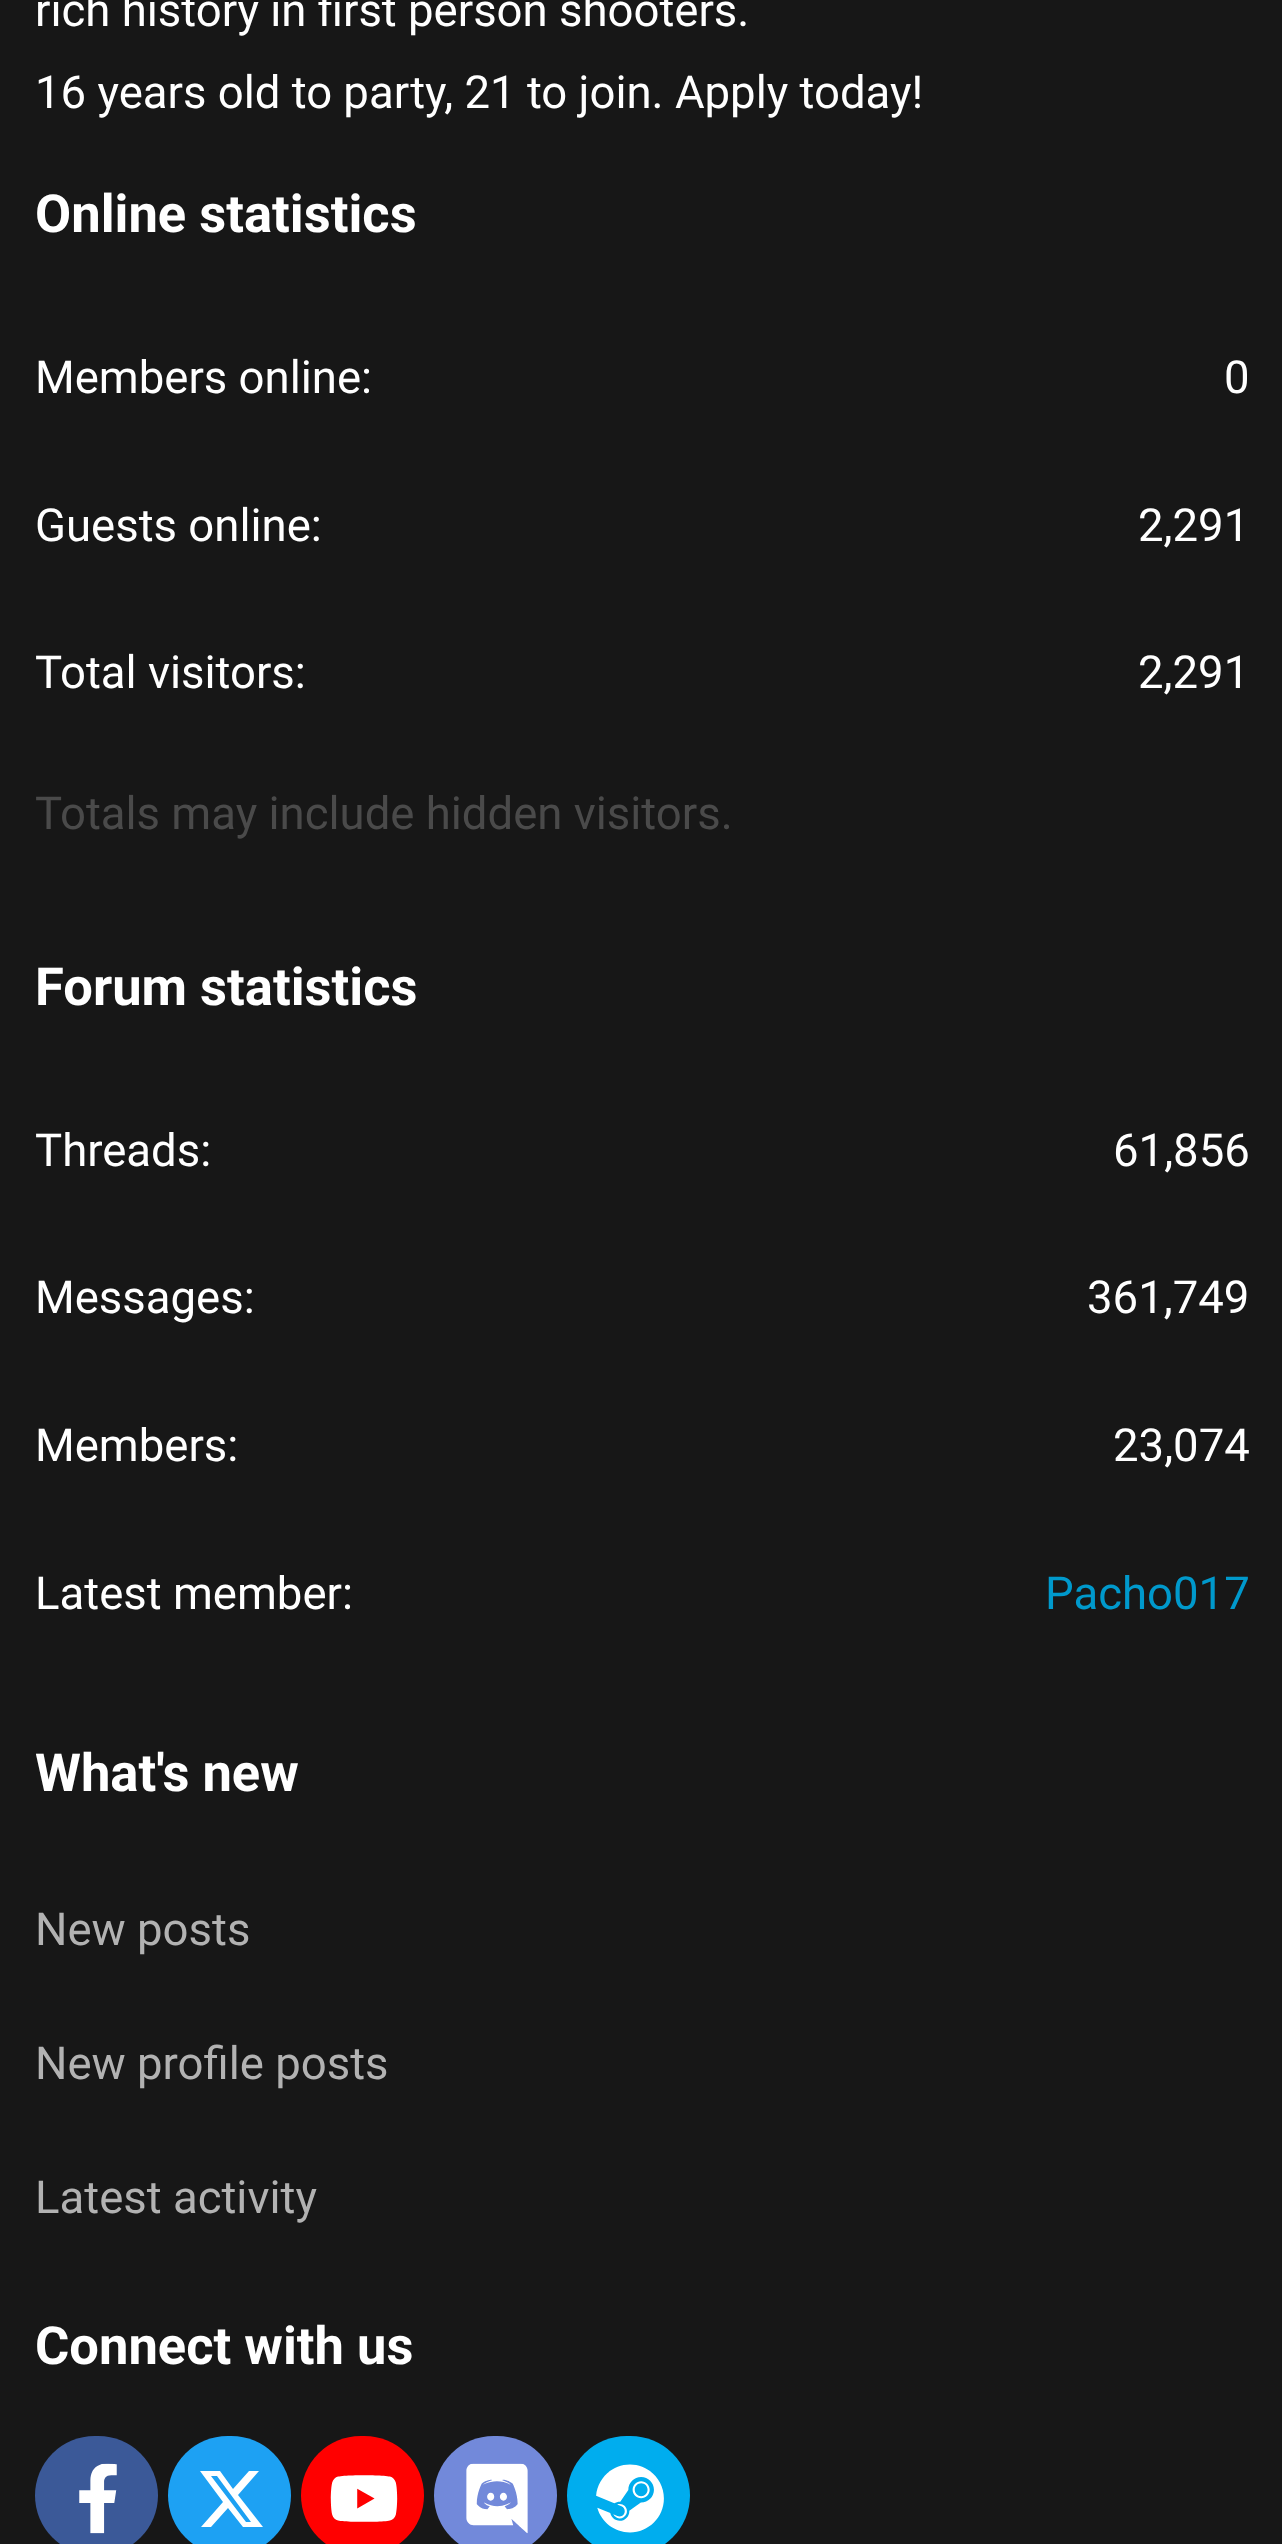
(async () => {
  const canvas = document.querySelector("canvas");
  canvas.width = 1282;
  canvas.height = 2544;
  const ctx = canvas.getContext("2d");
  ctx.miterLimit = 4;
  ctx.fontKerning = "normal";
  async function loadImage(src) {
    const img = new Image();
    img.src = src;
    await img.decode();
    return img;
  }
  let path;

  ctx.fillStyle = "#171717";
  ctx.fillRect(0, 0, 1282, 2544);
  ctx.fillStyle = "#3b5998";
  ctx.beginPath();
  ctx.roundRect(35, 2436, 123, 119, 59.5);
  ctx.fill();
  ctx.drawImage(await loadImage("img/1.png"), 79, 2463, 38, 71);
  ctx.fillStyle = "#1da1f3";
  ctx.beginPath();
  ctx.roundRect(168, 2436, 123, 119, 59.5);
  ctx.fill();
  ctx.fillStyle = "#ffffff";
  path = new Path2D("M249 2471H259L238 2495L263 2527H243L228 2508L211 2527H201L223 2502L200 2471H220L233 2489ZM246 2522H251L217 2476H211Z");
  ctx.fill(path);
  ctx.fillStyle = "#ff0000";
  ctx.beginPath();
  ctx.roundRect(301, 2436, 123, 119, 59.5);
  ctx.fill();
  ctx.drawImage(await loadImage("img/2.png"), 330, 2475, 68, 47);
  ctx.fillStyle = "#7289da";
  ctx.beginPath();
  ctx.roundRect(434, 2436, 123, 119, 59.5);
  ctx.fill();
  ctx.drawImage(await loadImage("img/3.png"), 466, 2463, 62, 71);
  ctx.fillStyle = "#00adee";
  ctx.beginPath();
  ctx.roundRect(567, 2436, 123, 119, 59.5);
  ctx.fill();
  ctx.drawImage(await loadImage("img/4.png"), 596, 2464, 68, 69);
  ctx.font = "45.5px Roboto";
  ctx.fillStyle = "#ffffff";
  ctx.fillText("rich history in first person shooters.", 35, 26);
  ctx.fillText("16 years old to party, 21 to join. Apply today!", 35, 108);
  ctx.font = "bold 52.5px Roboto";
  ctx.fillText("Online statistics", 35, 232);
  ctx.font = "45.5px Roboto";
  for (const [text, x, y] of [
    ["Members online:", 35, 393],
    ["0", 1224, 393],
    ["Guests online:", 35, 541],
    ["2,291", 1138, 541],
    ["Total visitors:", 35, 688],
    ["2,291", 1138, 688],
  ]) {
    ctx.fillText(text, x, y);
  }
  ctx.fillStyle = "#4a4a4a";
  ctx.fillText("Totals may include hidden visitors.", 35, 829);
  ctx.font = "bold 52.5px Roboto";
  ctx.fillStyle = "#ffffff";
  ctx.fillText("Forum statistics", 35, 1005);
  ctx.font = "45.5px Roboto";
  for (const [text, x, y] of [
    ["Threads:", 35, 1166],
    ["61,856", 1113, 1166],
    ["Messages:", 35, 1313],
    ["361,749", 1087, 1313],
    ["Members:", 35, 1461],
    ["23,074", 1113, 1461],
    ["Latest member:", 35, 1609],
  ]) {
    ctx.fillText(text, x, y);
  }
  ctx.fillStyle = "#0099cc";
  ctx.fillText("Pacho017", 1045, 1609);
  ctx.font = "bold 52.5px Roboto";
  ctx.fillStyle = "#ffffff";
  ctx.fillText("What's new", 35, 1791);
  ctx.font = "45.5px Roboto";
  ctx.fillStyle = "#b2b2b2";
  for (const [text, x, y] of [
    ["New posts", 35, 1945],
    ["New profile posts", 35, 2079],
    ["Latest activity", 35, 2213],
  ]) {
    ctx.fillText(text, x, y);
  }
  ctx.font = "bold 52.5px Roboto";
  ctx.fillStyle = "#ffffff";
  ctx.fillText("Connect with us", 35, 2364);
})();
